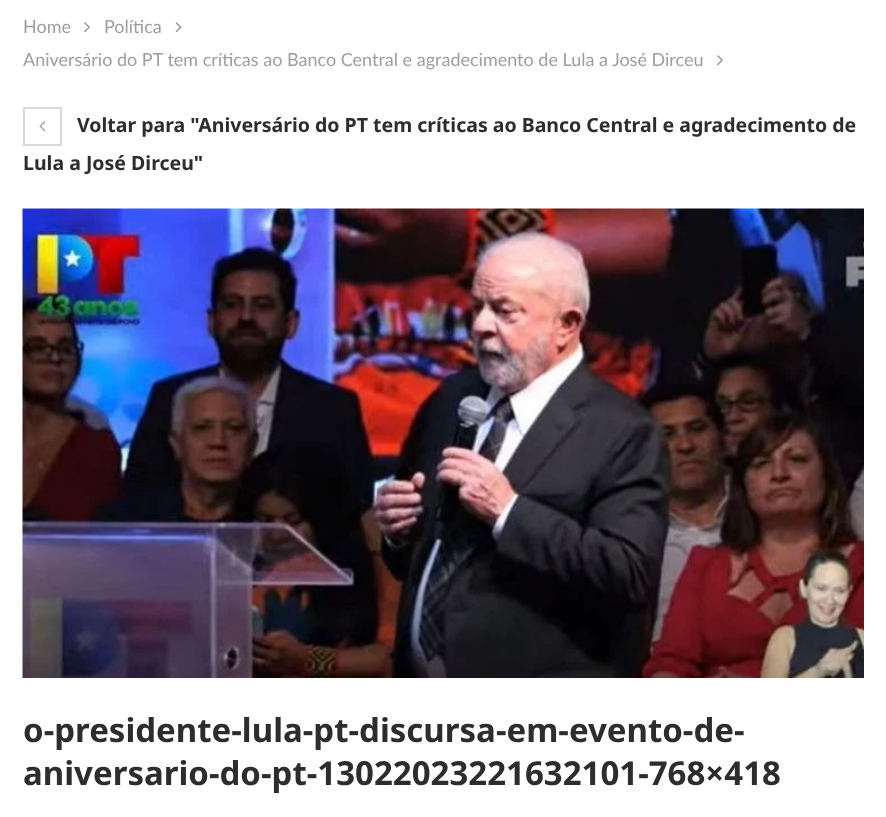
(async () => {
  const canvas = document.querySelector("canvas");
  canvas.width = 886;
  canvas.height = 817;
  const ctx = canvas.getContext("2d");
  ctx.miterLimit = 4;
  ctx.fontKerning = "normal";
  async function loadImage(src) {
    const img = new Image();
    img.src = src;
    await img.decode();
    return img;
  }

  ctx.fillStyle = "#ffffff";
  ctx.fillRect(0, 0, 886, 817);
  ctx.drawImage(await loadImage("img/1.png"), 84, 22, 6, 11);
  ctx.drawImage(await loadImage("img/2.png"), 175, 22, 7, 11);
  ctx.drawImage(await loadImage("img/1.png"), 717, 55, 6, 11);
  ctx.strokeStyle = "#d8d8d8";
  ctx.lineWidth = 2;
  ctx.strokeRect(24, 108, 37, 37);
  ctx.drawImage(await loadImage("img/3.png"), 39, 121, 7, 11);
  ctx.drawImage(await loadImage("img/4.png"), 22, 208, 842, 470);
  ctx.font = "18px Lato";
  ctx.fillStyle = "#9e9e9e";
  for (const [text, x, y] of [
    ["Home", 23, 33],
    ["Política", 104, 33],
    ["Aniversário do PT tem críticas ao Banco Central e agradecimento de Lula a José Dirceu", 23, 66],
  ]) {
    ctx.fillText(text, x, y);
  }
  ctx.font = "bold 19.5px Noto Sans";
  ctx.fillStyle = "#2d2d2d";
  ctx.fillText("Voltar para \"Aniversário do PT tem críticas ao Banco Central e agradecimento de", 77, 132);
  ctx.fillText("Lula a José Dirceu\"", 23, 170);
  ctx.font = "bold 33px Noto Sans";
  ctx.fillText("o-presidente-lula-pt-discursa-em-evento-de-", 23, 742);
  ctx.fillText("aniversario-do-pt-13022023221632101-768×418", 23, 785);
})();
